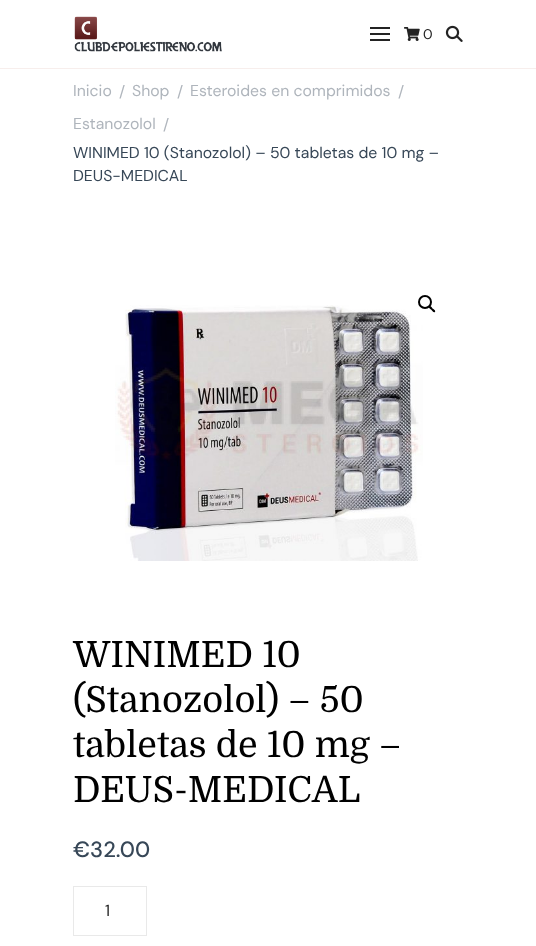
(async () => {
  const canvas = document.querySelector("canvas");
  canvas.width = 536;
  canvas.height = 946;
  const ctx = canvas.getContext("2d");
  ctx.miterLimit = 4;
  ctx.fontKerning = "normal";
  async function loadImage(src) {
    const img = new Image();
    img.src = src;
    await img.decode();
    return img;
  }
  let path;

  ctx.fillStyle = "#ffffff";
  ctx.fillRect(0, 0, 536, 946);
  ctx.fillStyle = "#f7eeec";
  ctx.fillRect(0, 68, 536, 1);
  ctx.drawImage(await loadImage("img/1.png"), 74, 16, 148, 36);
  for (const [x, y, w, h, color] of [
    [370, 27, 20, 2, "#232323"],
    [370, 33, 20, 2, "#232323"],
    [370, 39, 20, 2, "#232323"],
  ]) {
    ctx.fillStyle = color;
    ctx.fillRect(x, y, w, h);
  }
  ctx.drawImage(await loadImage("img/2.png"), 404, 27, 16, 14);
  ctx.drawImage(await loadImage("img/3.png"), 445, 25, 18, 17);
  ctx.drawImage(await loadImage("img/4.png"), 115, 305, 308, 256);
  ctx.beginPath();
  ctx.arc(425, 302, 6, 0, Math.PI * 2);
  ctx.strokeStyle = "#000000";
  ctx.lineWidth = 2;
  ctx.stroke();
  ctx.fillStyle = "#000000";
  path = new Path2D("M429 306.5C430.5 305 432 308 432.5 308.5C433.5 309 436 310.5 435 312C433.5 313 432 310.5 431.5 310C430.5 309 428 307.5 429 306.5Z");
  ctx.fill(path);
  ctx.strokeStyle = "#e9e9e9";
  ctx.lineWidth = 1;
  ctx.strokeRect(73.5, 886.5, 73, 49);
  ctx.font = "14px DM Sans";
  ctx.fillStyle = "#232323";
  ctx.fillText("0", 423, 39);
  ctx.font = "15.8px DM Sans";
  ctx.fillStyle = "#afb5bc";
  for (const [text, x, y] of [
    ["Inicio", 73, 96],
    ["/", 119, 97],
    ["Shop", 132, 96],
    ["/", 177, 97],
    ["Esteroides en comprimidos", 190, 96],
    ["/", 398, 97],
    ["Estanozolol", 73, 129],
    ["/", 163, 130],
  ]) {
    ctx.fillText(text, x, y);
  }
  ctx.fillStyle = "#374757";
  ctx.fillText("WINIMED 10 (Stanozolol) – 50 tabletas de 10 mg –", 73, 158);
  ctx.fillText("DEUS-MEDICAL", 73, 181);
  ctx.font = "36px Domine";
  ctx.fillStyle = "#000000";
  for (const [text, x, y] of [
    ["WINIMED 10", 73, 667],
    ["(Stanozolol) – 50", 73, 712],
    ["tabletas de 10 mg –", 73, 757],
    ["DEUS-MEDICAL", 73, 802],
  ]) {
    ctx.fillText(text, x, y);
  }
  ctx.font = "500 22px DM Sans";
  ctx.fillStyle = "#374757";
  ctx.fillText("€32.00", 73, 857);
  ctx.font = "16px DM Sans";
  ctx.fillStyle = "#232323";
  ctx.fillText("1", 105, 916);
})();
